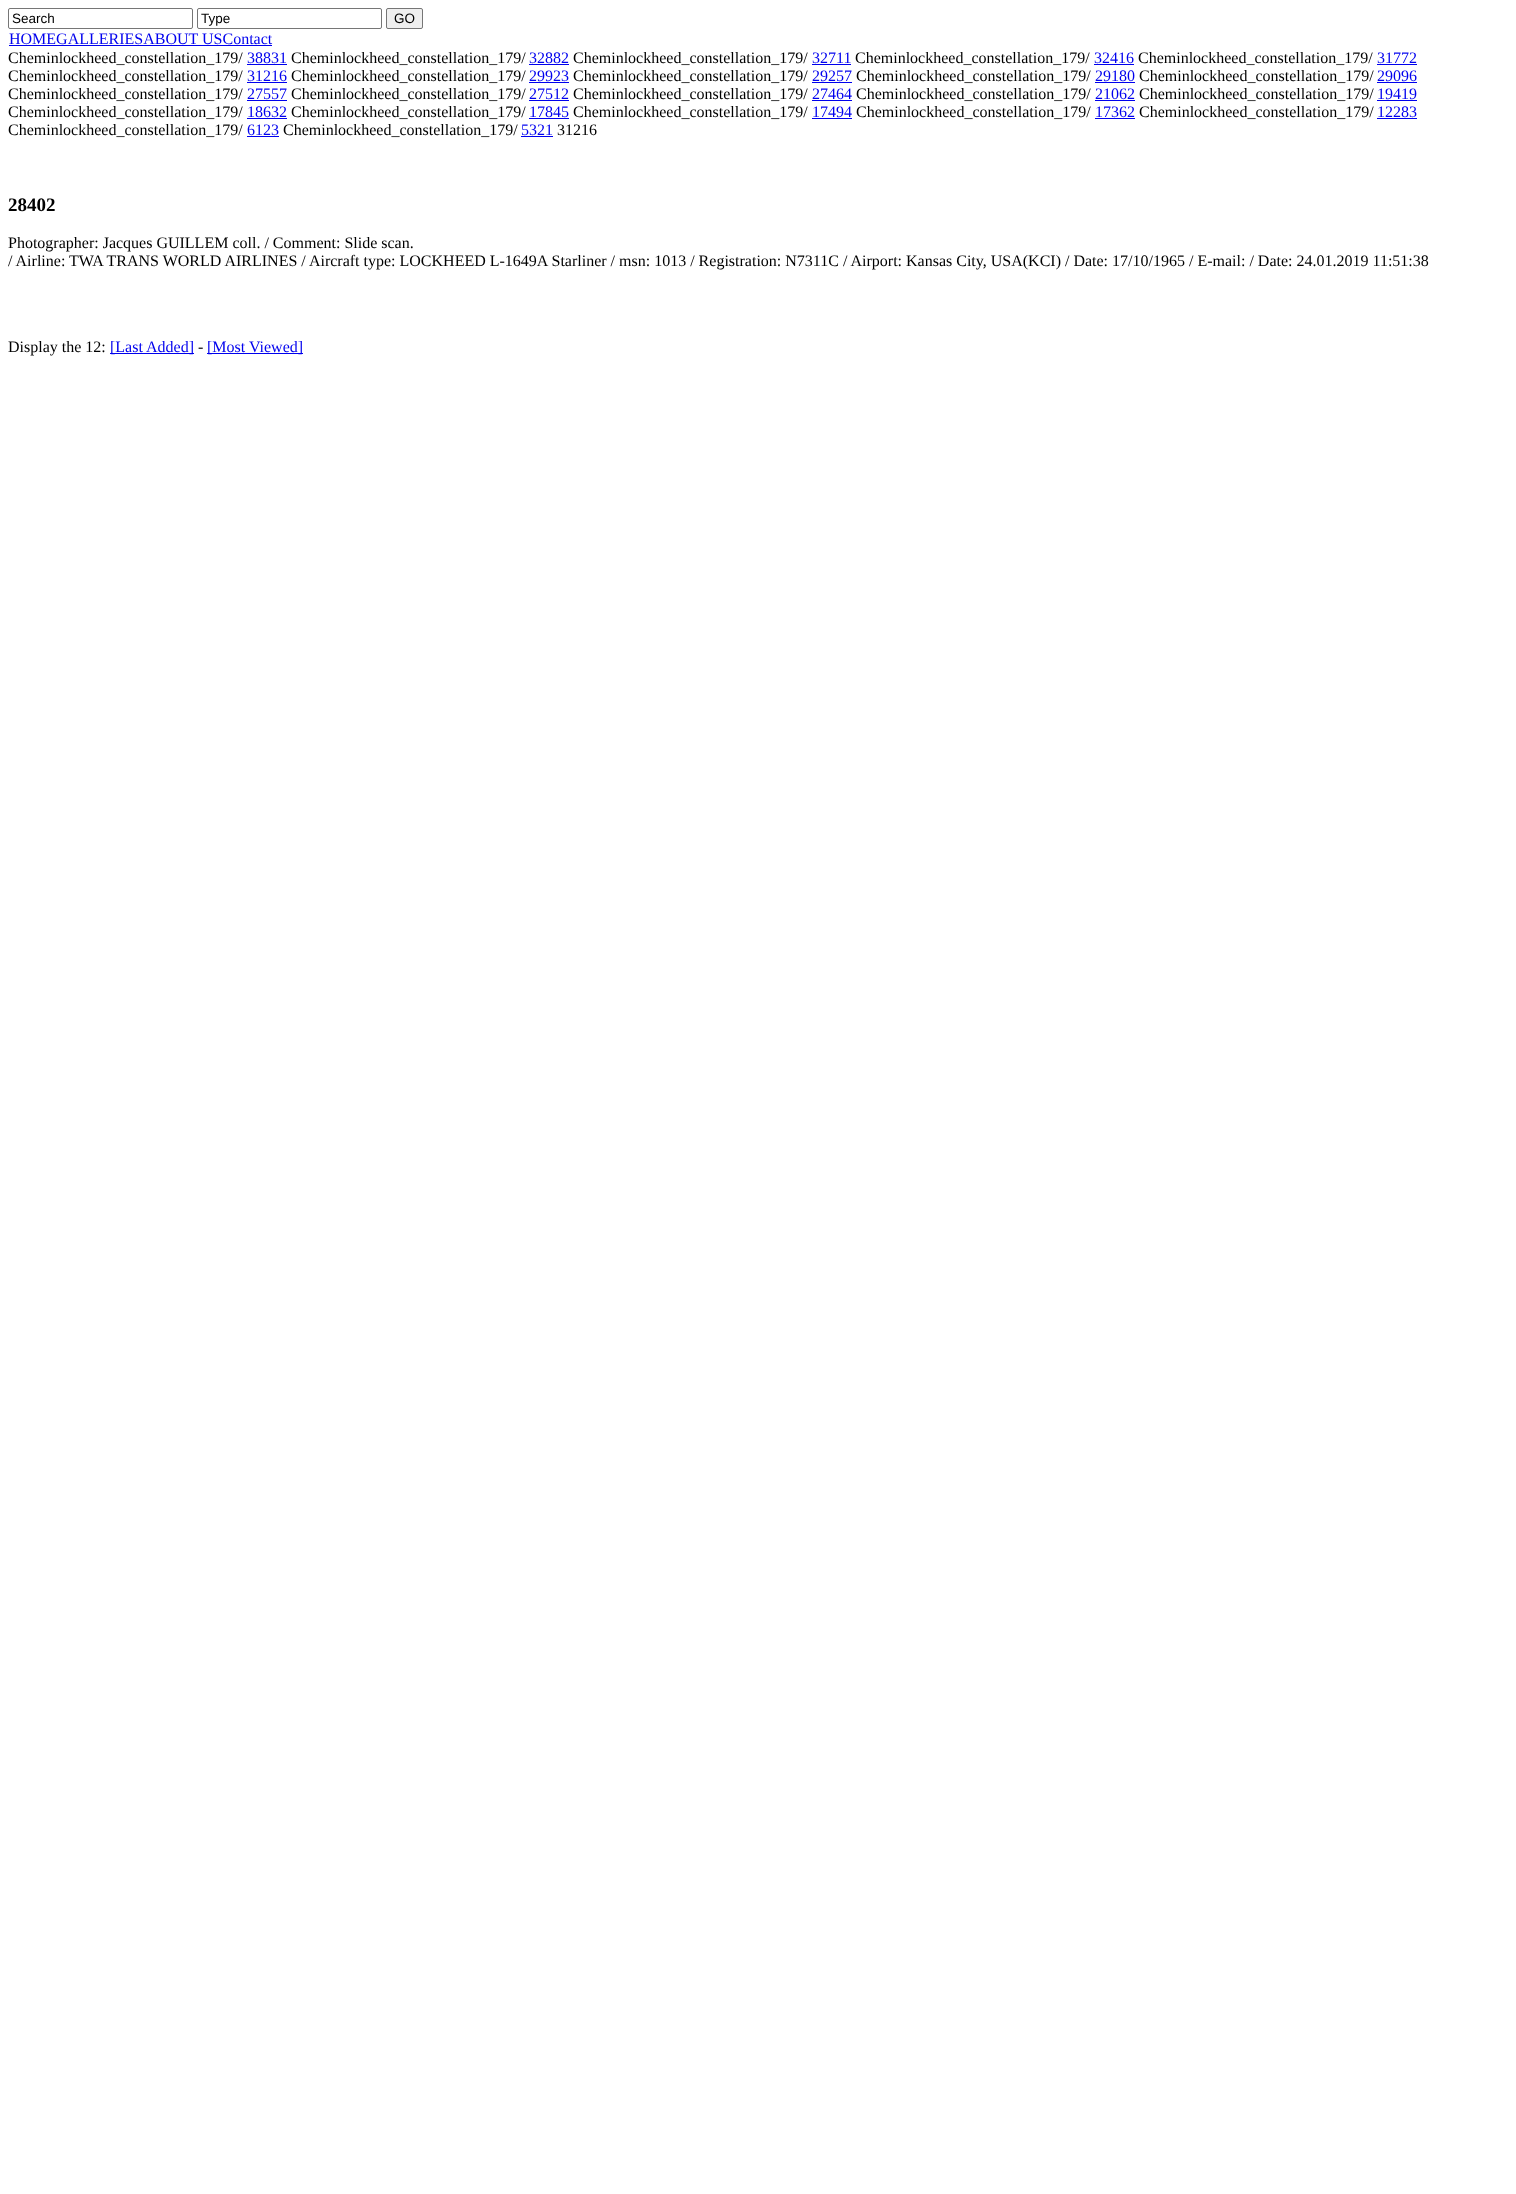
(async () => {
  const canvas = document.querySelector("canvas");
  canvas.width = 1516;
  canvas.height = 2194;
  const ctx = canvas.getContext("2d");
  ctx.miterLimit = 4;
  ctx.fontKerning = "normal";

  ctx.fillStyle = "#ffffff";
  ctx.fillRect(0, 0, 1516, 2194);
  ctx.beginPath();
  ctx.roundRect(8.5, 8.5, 184, 20, 1.5);
  ctx.strokeStyle = "#767676";
  ctx.stroke();
  ctx.beginPath();
  ctx.roundRect(197.5, 8.5, 184, 20, 1.5);
  ctx.stroke();
  ctx.fillStyle = "#efefef";
  ctx.beginPath();
  ctx.roundRect(386.5, 8.5, 36, 20, 1.5);
  ctx.fill();
  ctx.stroke();
  for (const [x, y, w, h, color] of [
    [9, 45, 263, 1, "#0000ee"],
    [247, 64, 40, 1, "#0000ee"],
    [529, 64, 40, 1, "#0000ee"],
    [812, 64, 39, 1, "#0000ee"],
    [1094, 64, 40, 1, "#0000ee"],
    [1377, 64, 40, 1, "#0000ee"],
    [247, 82, 40, 1, "#0000ee"],
    [529, 82, 40, 1, "#0000ee"],
    [812, 82, 40, 1, "#0000ee"],
    [1095, 82, 40, 1, "#0000ee"],
    [1377, 82, 40, 1, "#0000ee"],
    [247, 100, 40, 1, "#0000ee"],
    [529, 100, 40, 1, "#0000ee"],
    [812, 100, 40, 1, "#0000ee"],
    [1095, 100, 40, 1, "#0000ee"],
    [1377, 100, 40, 1, "#0000ee"],
    [247, 118, 40, 1, "#0000ee"],
    [529, 118, 40, 1, "#0000ee"],
    [812, 118, 40, 1, "#0000ee"],
    [1095, 118, 40, 1, "#0000ee"],
    [1377, 118, 40, 1, "#0000ee"],
    [247, 136, 32, 1, "#0000ee"],
    [521, 136, 32, 1, "#0000ee"],
    [110, 353, 84, 1, "#0000ee"],
    [207, 353, 96, 1, "#0000ee"],
  ]) {
    ctx.fillStyle = color;
    ctx.fillRect(x, y, w, h);
  }
  ctx.font = "13.5px Liberation Sans";
  ctx.fillStyle = "#000000";
  for (const [text, x, y] of [
    ["Search", 12, 23],
    ["Type", 201, 23],
    ["GO", 394, 23],
  ]) {
    ctx.fillText(text, x, y);
  }
  ctx.font = "16px Liberation Serif";
  ctx.fillStyle = "#0000ee";
  ctx.fillText("HOMEGALLERIESABOUT USContact", 9, 44);
  ctx.fillStyle = "#000000";
  ctx.fillText("Cheminlockheed_constellation_179/", 8, 63);
  ctx.fillStyle = "#0000ee";
  ctx.fillText("38831", 247, 63);
  ctx.fillStyle = "#000000";
  ctx.fillText("Cheminlockheed_constellation_179/", 291, 63);
  ctx.fillStyle = "#0000ee";
  ctx.fillText("32882", 529, 63);
  ctx.fillStyle = "#000000";
  ctx.fillText("Cheminlockheed_constellation_179/", 573, 63);
  ctx.fillStyle = "#0000ee";
  ctx.fillText("32711", 812, 63);
  ctx.fillStyle = "#000000";
  ctx.fillText("Cheminlockheed_constellation_179/", 855, 63);
  ctx.fillStyle = "#0000ee";
  ctx.fillText("32416", 1094, 63);
  ctx.fillStyle = "#000000";
  ctx.fillText("Cheminlockheed_constellation_179/", 1138, 63);
  ctx.fillStyle = "#0000ee";
  ctx.fillText("31772", 1377, 63);
  ctx.fillStyle = "#000000";
  ctx.fillText("Cheminlockheed_constellation_179/", 8, 81);
  ctx.fillStyle = "#0000ee";
  ctx.fillText("31216", 247, 81);
  ctx.fillStyle = "#000000";
  ctx.fillText("Cheminlockheed_constellation_179/", 291, 81);
  ctx.fillStyle = "#0000ee";
  ctx.fillText("29923", 529, 81);
  ctx.fillStyle = "#000000";
  ctx.fillText("Cheminlockheed_constellation_179/", 573, 81);
  ctx.fillStyle = "#0000ee";
  ctx.fillText("29257", 812, 81);
  ctx.fillStyle = "#000000";
  ctx.fillText("Cheminlockheed_constellation_179/", 856, 81);
  ctx.fillStyle = "#0000ee";
  ctx.fillText("29180", 1095, 81);
  ctx.fillStyle = "#000000";
  ctx.fillText("Cheminlockheed_constellation_179/", 1139, 81);
  ctx.fillStyle = "#0000ee";
  ctx.fillText("29096", 1377, 81);
  ctx.fillStyle = "#000000";
  ctx.fillText("Cheminlockheed_constellation_179/", 8, 99);
  ctx.fillStyle = "#0000ee";
  ctx.fillText("27557", 247, 99);
  ctx.fillStyle = "#000000";
  ctx.fillText("Cheminlockheed_constellation_179/", 291, 99);
  ctx.fillStyle = "#0000ee";
  ctx.fillText("27512", 529, 99);
  ctx.fillStyle = "#000000";
  ctx.fillText("Cheminlockheed_constellation_179/", 573, 99);
  ctx.fillStyle = "#0000ee";
  ctx.fillText("27464", 812, 99);
  ctx.fillStyle = "#000000";
  ctx.fillText("Cheminlockheed_constellation_179/", 856, 99);
  ctx.fillStyle = "#0000ee";
  ctx.fillText("21062", 1095, 99);
  ctx.fillStyle = "#000000";
  ctx.fillText("Cheminlockheed_constellation_179/", 1139, 99);
  ctx.fillStyle = "#0000ee";
  ctx.fillText("19419", 1377, 99);
  ctx.fillStyle = "#000000";
  ctx.fillText("Cheminlockheed_constellation_179/", 8, 117);
  ctx.fillStyle = "#0000ee";
  ctx.fillText("18632", 247, 117);
  ctx.fillStyle = "#000000";
  ctx.fillText("Cheminlockheed_constellation_179/", 291, 117);
  ctx.fillStyle = "#0000ee";
  ctx.fillText("17845", 529, 117);
  ctx.fillStyle = "#000000";
  ctx.fillText("Cheminlockheed_constellation_179/", 573, 117);
  ctx.fillStyle = "#0000ee";
  ctx.fillText("17494", 812, 117);
  ctx.fillStyle = "#000000";
  ctx.fillText("Cheminlockheed_constellation_179/", 856, 117);
  ctx.fillStyle = "#0000ee";
  ctx.fillText("17362", 1095, 117);
  ctx.fillStyle = "#000000";
  ctx.fillText("Cheminlockheed_constellation_179/", 1139, 117);
  ctx.fillStyle = "#0000ee";
  ctx.fillText("12283", 1377, 117);
  ctx.fillStyle = "#000000";
  ctx.fillText("Cheminlockheed_constellation_179/", 8, 135);
  ctx.fillStyle = "#0000ee";
  ctx.fillText("6123", 247, 135);
  ctx.fillStyle = "#000000";
  ctx.fillText("Cheminlockheed_constellation_179/", 283, 135);
  ctx.fillStyle = "#0000ee";
  ctx.fillText("5321", 521, 135);
  ctx.fillStyle = "#000000";
  ctx.fillText("31216", 557, 135);
  ctx.font = "bold 19px Liberation Serif";
  ctx.fillText("28402", 8, 211);
  ctx.font = "16px Liberation Serif";
  for (const [text, x, y] of [
    ["Photographer: Jacques GUILLEM coll. / Comment: Slide scan.", 8, 248],
    ["/ Airline: TWA TRANS WORLD AIRLINES / Aircraft type: LOCKHEED L-1649A Starliner / msn: 1013 / Registration: N7311C / Airport: Kansas City, USA(KCI) / Date: 17/10/1965 / E-mail: / Date: 24.01.2019 11:51:38", 8, 266],
    ["Display the 12:", 8, 352],
  ]) {
    ctx.fillText(text, x, y);
  }
  ctx.fillStyle = "#0000ee";
  ctx.fillText("[Last Added]", 110, 352);
  ctx.fillStyle = "#000000";
  ctx.fillText("-", 198, 352);
  ctx.fillStyle = "#0000ee";
  ctx.fillText("[Most Viewed]", 207, 352);
})();
